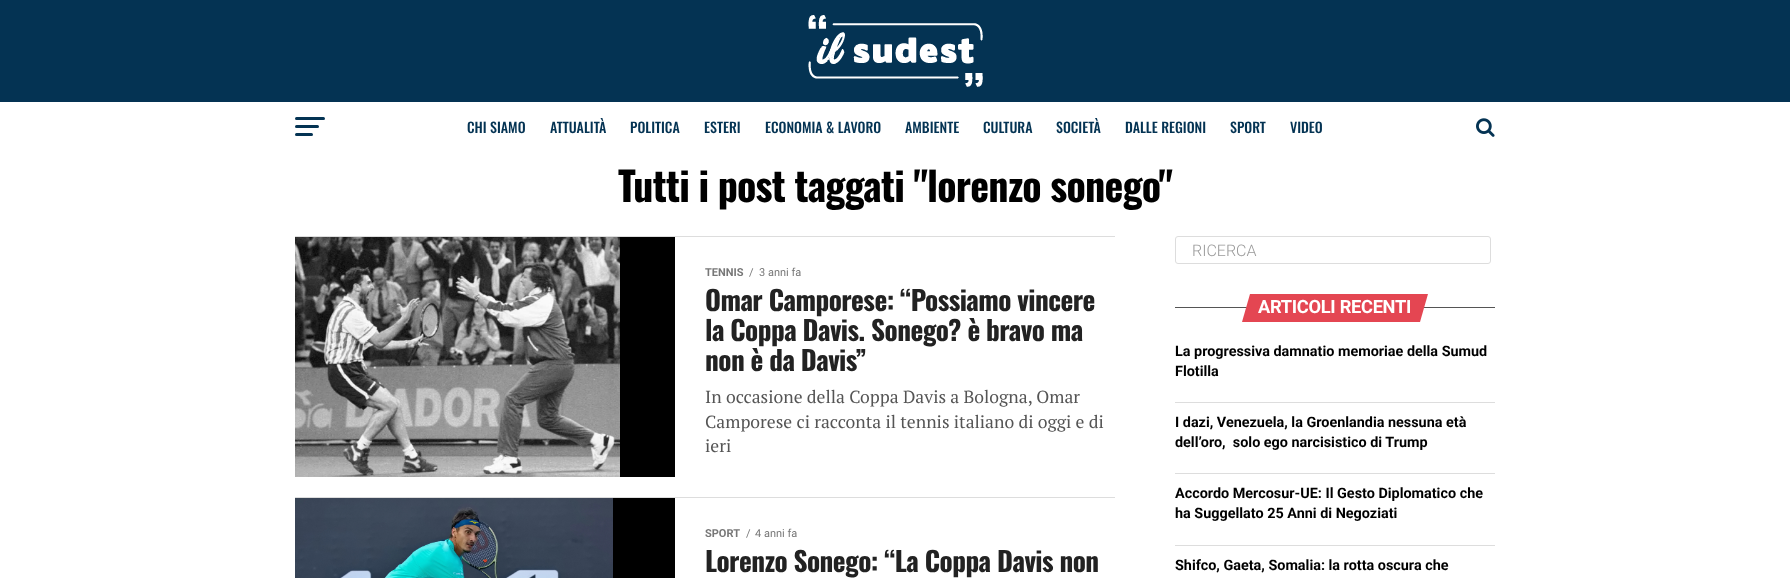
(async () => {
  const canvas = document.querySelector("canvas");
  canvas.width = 1790;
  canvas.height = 578;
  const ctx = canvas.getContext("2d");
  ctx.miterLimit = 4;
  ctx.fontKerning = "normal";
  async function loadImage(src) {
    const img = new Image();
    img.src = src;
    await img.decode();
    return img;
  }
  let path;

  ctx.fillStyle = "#ffffff";
  ctx.fillRect(0, 0, 1790, 578);
  ctx.fillStyle = "#043353";
  ctx.fillRect(0, 0, 1790, 102);
  ctx.drawImage(await loadImage("img/1.png"), 808, 15, 175, 72);
  ctx.beginPath();
  ctx.roundRect(295, 117, 30, 3, 1.5);
  ctx.fill();
  ctx.beginPath();
  ctx.roundRect(295, 125, 24, 3, 1.5);
  ctx.fill();
  ctx.beginPath();
  ctx.roundRect(295, 133, 18, 3, 1.5);
  ctx.fill();
  ctx.drawImage(await loadImage("img/2.png"), 1476, 118, 19, 19);
  ctx.fillStyle = "#dddddd";
  ctx.fillRect(295, 236, 820, 1);
  ctx.fillStyle = "#000000";
  ctx.fillRect(620, 237, 55, 240);
  ctx.drawImage(await loadImage("img/3.png"), 295, 237, 325, 240);
  ctx.fillStyle = "#dddddd";
  ctx.fillRect(295, 497, 820, 1);
  ctx.fillStyle = "#000000";
  ctx.fillRect(613, 498, 62, 80);
  ctx.drawImage(await loadImage("img/4.png"), 295, 498, 318, 80);
  ctx.beginPath();
  ctx.roundRect(1175.5, 236.5, 315, 27, 2.5);
  ctx.strokeStyle = "#dddddd";
  ctx.stroke();
  ctx.fillStyle = "#555555";
  ctx.fillRect(1175, 307, 320, 1);
  ctx.fillStyle = "#e44652";
  path = new Path2D("M1250 294H1428L1420 322H1242Z");
  ctx.fill(path);
  for (const [x, y, w, h, color] of [
    [1175, 402, 320, 1, "#dddddd"],
    [1175, 473, 320, 1, "#dddddd"],
    [1175, 545, 320, 1, "#dddddd"],
  ]) {
    ctx.fillStyle = color;
    ctx.fillRect(x, y, w, h);
  }
  ctx.font = "500 14px Oswald";
  ctx.fillStyle = "#043353";
  for (const [text, x, y] of [
    ["CHI SIAMO", 467, 133],
    ["ATTUALITÀ", 550, 133],
    ["POLITICA", 630, 133],
    ["ESTERI", 704, 133],
    ["ECONOMIA & LAVORO", 765, 133],
    ["AMBIENTE", 905, 133],
    ["CULTURA", 983, 133],
    ["SOCIETÀ", 1056, 133],
    ["DALLE REGIONI", 1125, 133],
    ["SPORT", 1230, 133],
    ["VIDEO", 1290, 133],
  ]) {
    ctx.fillText(text, x, y);
  }
  ctx.letterSpacing = "-0.8px";
  ctx.font = "bold 40px Oswald";
  ctx.fillStyle = "#000000";
  ctx.fillText("Tutti i post taggati \"lorenzo sonego\"", 618, 202);
  ctx.letterSpacing = "0px";
  ctx.font = "bold 11px Roboto";
  ctx.fillStyle = "#777777";
  ctx.fillText("TENNIS", 705, 276);
  ctx.font = "11px Roboto";
  ctx.fillText("/", 749, 276);
  ctx.fillText("3 anni fa", 759, 276);
  ctx.letterSpacing = "-0.55px";
  ctx.font = "bold 27.25px Oswald";
  ctx.fillStyle = "#222222";
  for (const [text, x, y] of [
    ["Omar Camporese: “Possiamo vincere", 705, 311],
    ["la Coppa Davis. Sonego? è bravo ma", 705, 341],
    ["non è da Davis”", 705, 371],
  ]) {
    ctx.fillText(text, x, y);
  }
  ctx.letterSpacing = "0px";
  ctx.font = "17.6px PT Serif";
  ctx.fillStyle = "#555555";
  for (const [text, x, y] of [
    ["In occasione della Coppa Davis a Bologna, Omar", 705, 403],
    ["Camporese ci racconta il tennis italiano di oggi e di", 705, 428],
    ["ieri", 705, 452],
  ]) {
    ctx.fillText(text, x, y);
  }
  ctx.font = "bold 11px Roboto";
  ctx.fillStyle = "#777777";
  ctx.fillText("SPORT", 705, 537);
  ctx.font = "11px Roboto";
  ctx.fillText("/", 746, 537);
  ctx.fillText("4 anni fa", 755, 537);
  ctx.letterSpacing = "-0.55px";
  ctx.font = "bold 27.25px Oswald";
  ctx.fillStyle = "#222222";
  ctx.fillText("Lorenzo Sonego: “La Coppa Davis non", 705, 572);
  ctx.letterSpacing = "0px";
  ctx.font = "300 16px Roboto";
  ctx.fillStyle = "#999999";
  ctx.fillText("RICERCA", 1192, 256);
  ctx.letterSpacing = "-0.3px";
  ctx.font = "bold 18.25px Roboto";
  ctx.fillStyle = "#ffffff";
  ctx.fillText("ARTICOLI RECENTI", 1258, 313);
  ctx.letterSpacing = "0px";
  ctx.font = "bold 14.4px Roboto";
  ctx.fillStyle = "#000000";
  for (const [text, x, y] of [
    ["La progressiva damnatio memoriae della Sumud", 1175, 356],
    ["Flotilla", 1175, 376],
    ["I dazi, Venezuela, la Groenlandia nessuna età", 1175, 427],
    ["dell’oro,  solo ego narcisistico di Trump", 1175, 447],
    ["Accordo Mercosur-UE: Il Gesto Diplomatico che", 1175, 498],
    ["ha Suggellato 25 Anni di Negoziati", 1175, 518],
    ["Shifco, Gaeta, Somalia: la rotta oscura che", 1175, 570],
  ]) {
    ctx.fillText(text, x, y);
  }
})();
